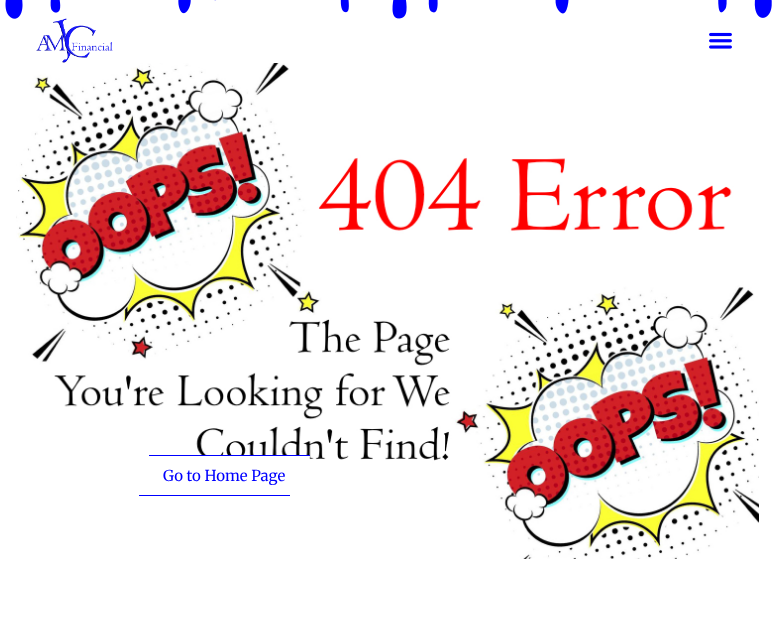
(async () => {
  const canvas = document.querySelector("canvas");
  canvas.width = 775;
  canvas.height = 630;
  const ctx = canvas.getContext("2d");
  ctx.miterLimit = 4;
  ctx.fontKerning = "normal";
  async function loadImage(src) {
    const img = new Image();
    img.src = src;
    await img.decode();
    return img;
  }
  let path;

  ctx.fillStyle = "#ffffff";
  ctx.fillRect(0, 0, 775, 630);
  ctx.drawImage(await loadImage("img/1.png"), 5, 0, 767, 19);
  ctx.drawImage(await loadImage("img/2.png"), 36, 18, 77, 45);
  ctx.drawImage(await loadImage("img/3.png"), 709, 32, 23, 17);
  ctx.drawImage(await loadImage("img/4.png"), 16, 63, 743, 496);
  path = new Path2D("M160 456H310V455C310 477 292 495 269 495H139V476C139 465 148 456 160 456Z");
  ctx.fill(path);
  ctx.fillStyle = "#0000ff";
  ctx.fillRect(149, 455, 161, 1);
  ctx.fillRect(139, 495, 151, 1);
  ctx.font = "15px Merriweather";
  ctx.fillText("Go to Home Page", 163, 481);
})();
